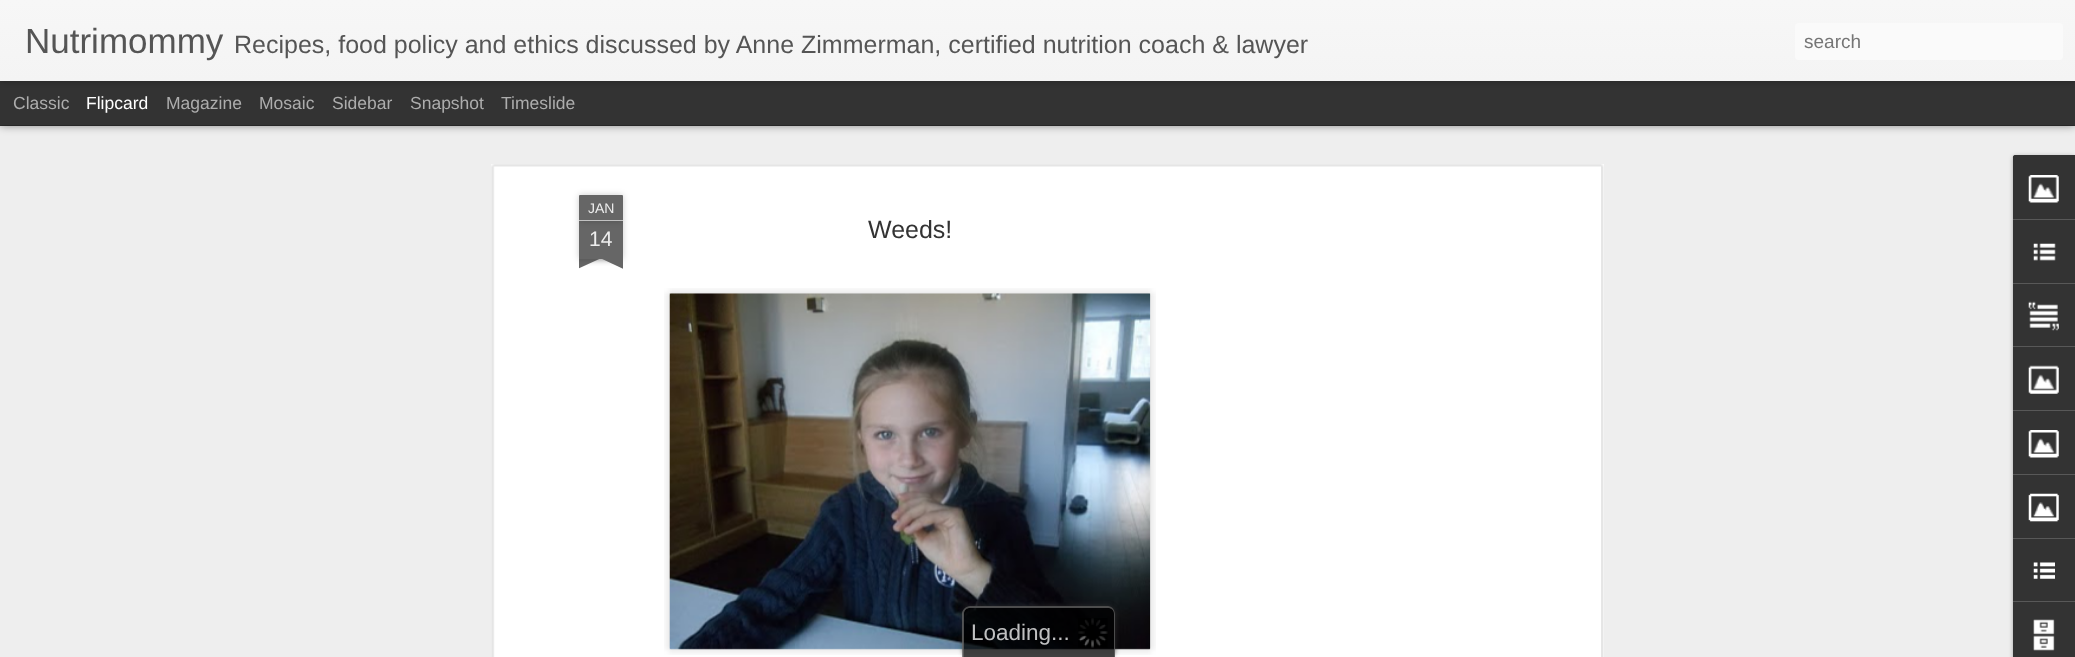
(async () => {
  const canvas = document.querySelector("canvas");
  canvas.width = 2075;
  canvas.height = 657;
  const ctx = canvas.getContext("2d");
  ctx.miterLimit = 4;
  ctx.fontKerning = "normal";
  async function loadImage(src) {
    const img = new Image();
    img.src = src;
    await img.decode();
    return img;
  }
  let gradient, path;

  ctx.fillStyle = "#333333";
  ctx.fillRect(0, 0, 2075, 657);
  ctx.fillStyle = "#eeeeee";
  ctx.fillRect(0, 126, 2075, 531);
  ctx.fillStyle = "rgba(0, 0, 0, 0.5)";
  ctx.filter = "blur(5px)";
  ctx.beginPath();
  ctx.rect(0, 81, 2075, 44);
  ctx.fill();
  ctx.filter = "none";
  ctx.fillStyle = "#333333";
  ctx.fillRect(0, 81, 2075, 44);
  ctx.fillStyle = "rgba(0, 0, 0, 0.3)";
  ctx.filter = "blur(3px)";
  ctx.beginPath();
  ctx.rect(0, 0, 2075, 81);
  ctx.fill();
  ctx.filter = "none";
  gradient = ctx.createLinearGradient(0, 0, 0, 81);
  gradient.addColorStop(0, "#f7f7f7");
  gradient.addColorStop(1, "#f4f4f4");
  ctx.fillStyle = gradient;
  ctx.fillRect(0, 0, 2075, 81);
  ctx.fillStyle = "#fafafa";
  ctx.beginPath();
  ctx.roundRect(1795, 23, 268, 37, 4);
  ctx.fill();
  ctx.fillStyle = "#ffffff";
  ctx.fillRect(491, 164, 1113, 493);
  ctx.drawImage(await loadImage("img/1.png"), 491, 164, 1113, 493);
  ctx.fillStyle = "rgba(0, 0, 0, 0.2)";
  ctx.filter = "blur(3px)";
  ctx.beginPath();
  ctx.rect(579, 221, 44, 38);
  ctx.fill();
  ctx.filter = "none";
  ctx.fillStyle = "#666666";
  ctx.fillRect(579, 221, 44, 38);
  ctx.fillStyle = "rgba(0, 0, 0, 0.2)";
  ctx.filter = "blur(3px)";
  ctx.beginPath();
  ctx.roundRect(579, 195, 44, 26, 1);
  ctx.fill();
  ctx.filter = "none";
  ctx.fillStyle = "#666666";
  ctx.beginPath();
  ctx.roundRect(579, 195, 44, 26, [1, 1, 0, 0]);
  ctx.fill();
  ctx.fillStyle = "#c2c2c2";
  ctx.fillRect(579, 220, 44, 1);
  ctx.save();
  ctx.beginPath();
  ctx.rect(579, 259, 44, 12);
  ctx.clip();
  ctx.fillStyle = "rgba(0, 0, 0, 0.2)";
  ctx.filter = "blur(3px)";
  ctx.beginPath();
  ctx.rect(568, 246, 62, 13);
  ctx.fill();
  ctx.filter = "none";
  ctx.restore();
  ctx.save();
  ctx.beginPath();
  ctx.rect(579, 259, 44, 12);
  ctx.clip();
  ctx.fillStyle = "#666666";
  path = new Path2D("M568 260L624 234L630 245L573 271Z");
  ctx.fill(path);
  ctx.restore();
  ctx.save();
  ctx.beginPath();
  ctx.rect(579, 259, 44, 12);
  ctx.clip();
  ctx.fillStyle = "rgba(0, 0, 0, 0.2)";
  ctx.filter = "blur(3px)";
  ctx.beginPath();
  ctx.rect(571, 246, 63, 13);
  ctx.fill();
  ctx.filter = "none";
  ctx.restore();
  ctx.save();
  ctx.beginPath();
  ctx.rect(579, 259, 44, 12);
  ctx.clip();
  ctx.fillStyle = "#666666";
  path = new Path2D("M577 234L633 260L628 271L572 245Z");
  ctx.fill(path);
  ctx.restore();
  ctx.drawImage(await loadImage("img/2.png"), 664, 288, 492, 367);
  ctx.drawImage(await loadImage("img/3.png"), 669, 293, 482, 357);
  ctx.fillStyle = "rgba(0, 0, 0, 0.3)";
  ctx.filter = "blur(2px)";
  ctx.beginPath();
  ctx.roundRect(2013, 156, 62, 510, 2.5);
  ctx.fill();
  ctx.filter = "none";
  ctx.fillStyle = "#333333";
  path = new Path2D("M2015.5 155H2075V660H2015.5C2014 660 2013 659 2013 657.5V157.5C2013 156 2014 155 2015.5 155Z");
  ctx.fill(path);
  ctx.beginPath();
  ctx.roundRect(2013, 155, 62, 64, [2.5, 0, 0, 0]);
  ctx.fill();
  ctx.drawImage(await loadImage("img/4.png"), 2028, 175, 31, 28);
  ctx.fillStyle = "#585858";
  ctx.fillRect(2013, 219, 62, 1);
  ctx.drawImage(await loadImage("img/5.png"), 2033, 243, 23, 18);
  ctx.fillRect(2013, 283, 62, 1);
  ctx.drawImage(await loadImage("img/6.png"), 2028, 301, 31, 30);
  ctx.fillRect(2013, 346, 62, 1);
  ctx.drawImage(await loadImage("img/7.png"), 2028, 365, 31, 29);
  ctx.fillRect(2013, 410, 62, 1);
  ctx.drawImage(await loadImage("img/4.png"), 2028, 430, 31, 28);
  ctx.fillRect(2013, 474, 62, 1);
  ctx.drawImage(await loadImage("img/8.png"), 2028, 493, 31, 29);
  ctx.fillRect(2013, 538, 62, 1);
  ctx.drawImage(await loadImage("img/9.png"), 2033, 562, 22, 17);
  ctx.fillRect(2013, 601, 62, 1);
  ctx.drawImage(await loadImage("img/10.png"), 2033, 619, 22, 32);
  ctx.save();
  path = new Path2D("M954 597H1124V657H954ZM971 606H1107C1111.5 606 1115 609.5 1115 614V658H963V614C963 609.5 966.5 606 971 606Z");
  ctx.clip(path, "evenodd");
  ctx.fillStyle = "rgba(51, 51, 51, 0.75)";
  ctx.filter = "blur(2.5px)";
  ctx.beginPath();
  ctx.roundRect(963, 606, 152, 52, 8);
  ctx.fill();
  ctx.filter = "none";
  ctx.restore();
  ctx.fillStyle = "rgba(0, 0, 0, 0.75)";
  path = new Path2D("M971 606H1107C1111.5 606 1115 609.5 1115 614V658H963V614C963 609.5 966.5 606 971 606Z");
  ctx.fill(path);
  ctx.fillStyle = "rgba(102, 102, 102, 0.75)";
  path = new Path2D("M970 606H1108C1112 606 1115 610 1115 614V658H962V614C962 610 966 606 970 606ZM970 608H1108C1111 608 1114 610 1114 614V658H964V614C964 610 967 608 970 608Z");
  ctx.fill(path, "evenodd");
  ctx.drawImage(await loadImage("img/11.png"), 1078, 618, 30, 30);
  ctx.font = "35px Liberation Sans";
  ctx.fillStyle = "#555555";
  ctx.fillText("Nutrimommy", 25, 53);
  ctx.font = "25px Liberation Sans";
  ctx.fillText("Recipes, food policy and ethics discussed by Anne Zimmerman, certified nutrition coach & lawyer", 234, 53);
  ctx.font = "19px Liberation Sans";
  ctx.fillStyle = "#757575";
  ctx.fillText("search", 1804, 48);
  ctx.font = "17.5px Liberation Sans";
  ctx.fillStyle = "#adadad";
  ctx.fillText("Classic", 13, 109);
  ctx.fillStyle = "#ffffff";
  ctx.fillText("Flipcard", 86, 109);
  ctx.fillStyle = "#adadad";
  for (const [text, x, y] of [
    ["Magazine", 166, 109],
    ["Mosaic", 259, 109],
    ["Sidebar", 332, 109],
    ["Snapshot", 410, 109],
    ["Timeslide", 501, 109],
  ]) {
    ctx.fillText(text, x, y);
  }
  ctx.font = "14px Liberation Sans";
  ctx.fillStyle = "#eeeeee";
  ctx.fillText("JAN", 588, 213);
  ctx.font = "21px Liberation Sans";
  ctx.fillText("14", 589, 246);
  ctx.font = "25px Liberation Sans";
  ctx.fillStyle = "#333333";
  ctx.fillText("Weeds!", 868, 238);
  ctx.font = "22.5px Liberation Sans";
  ctx.fillStyle = "#c0c0c1";
  ctx.fillText("Loading", 971, 640);
  ctx.fillText("...", 1051, 640);
})();
